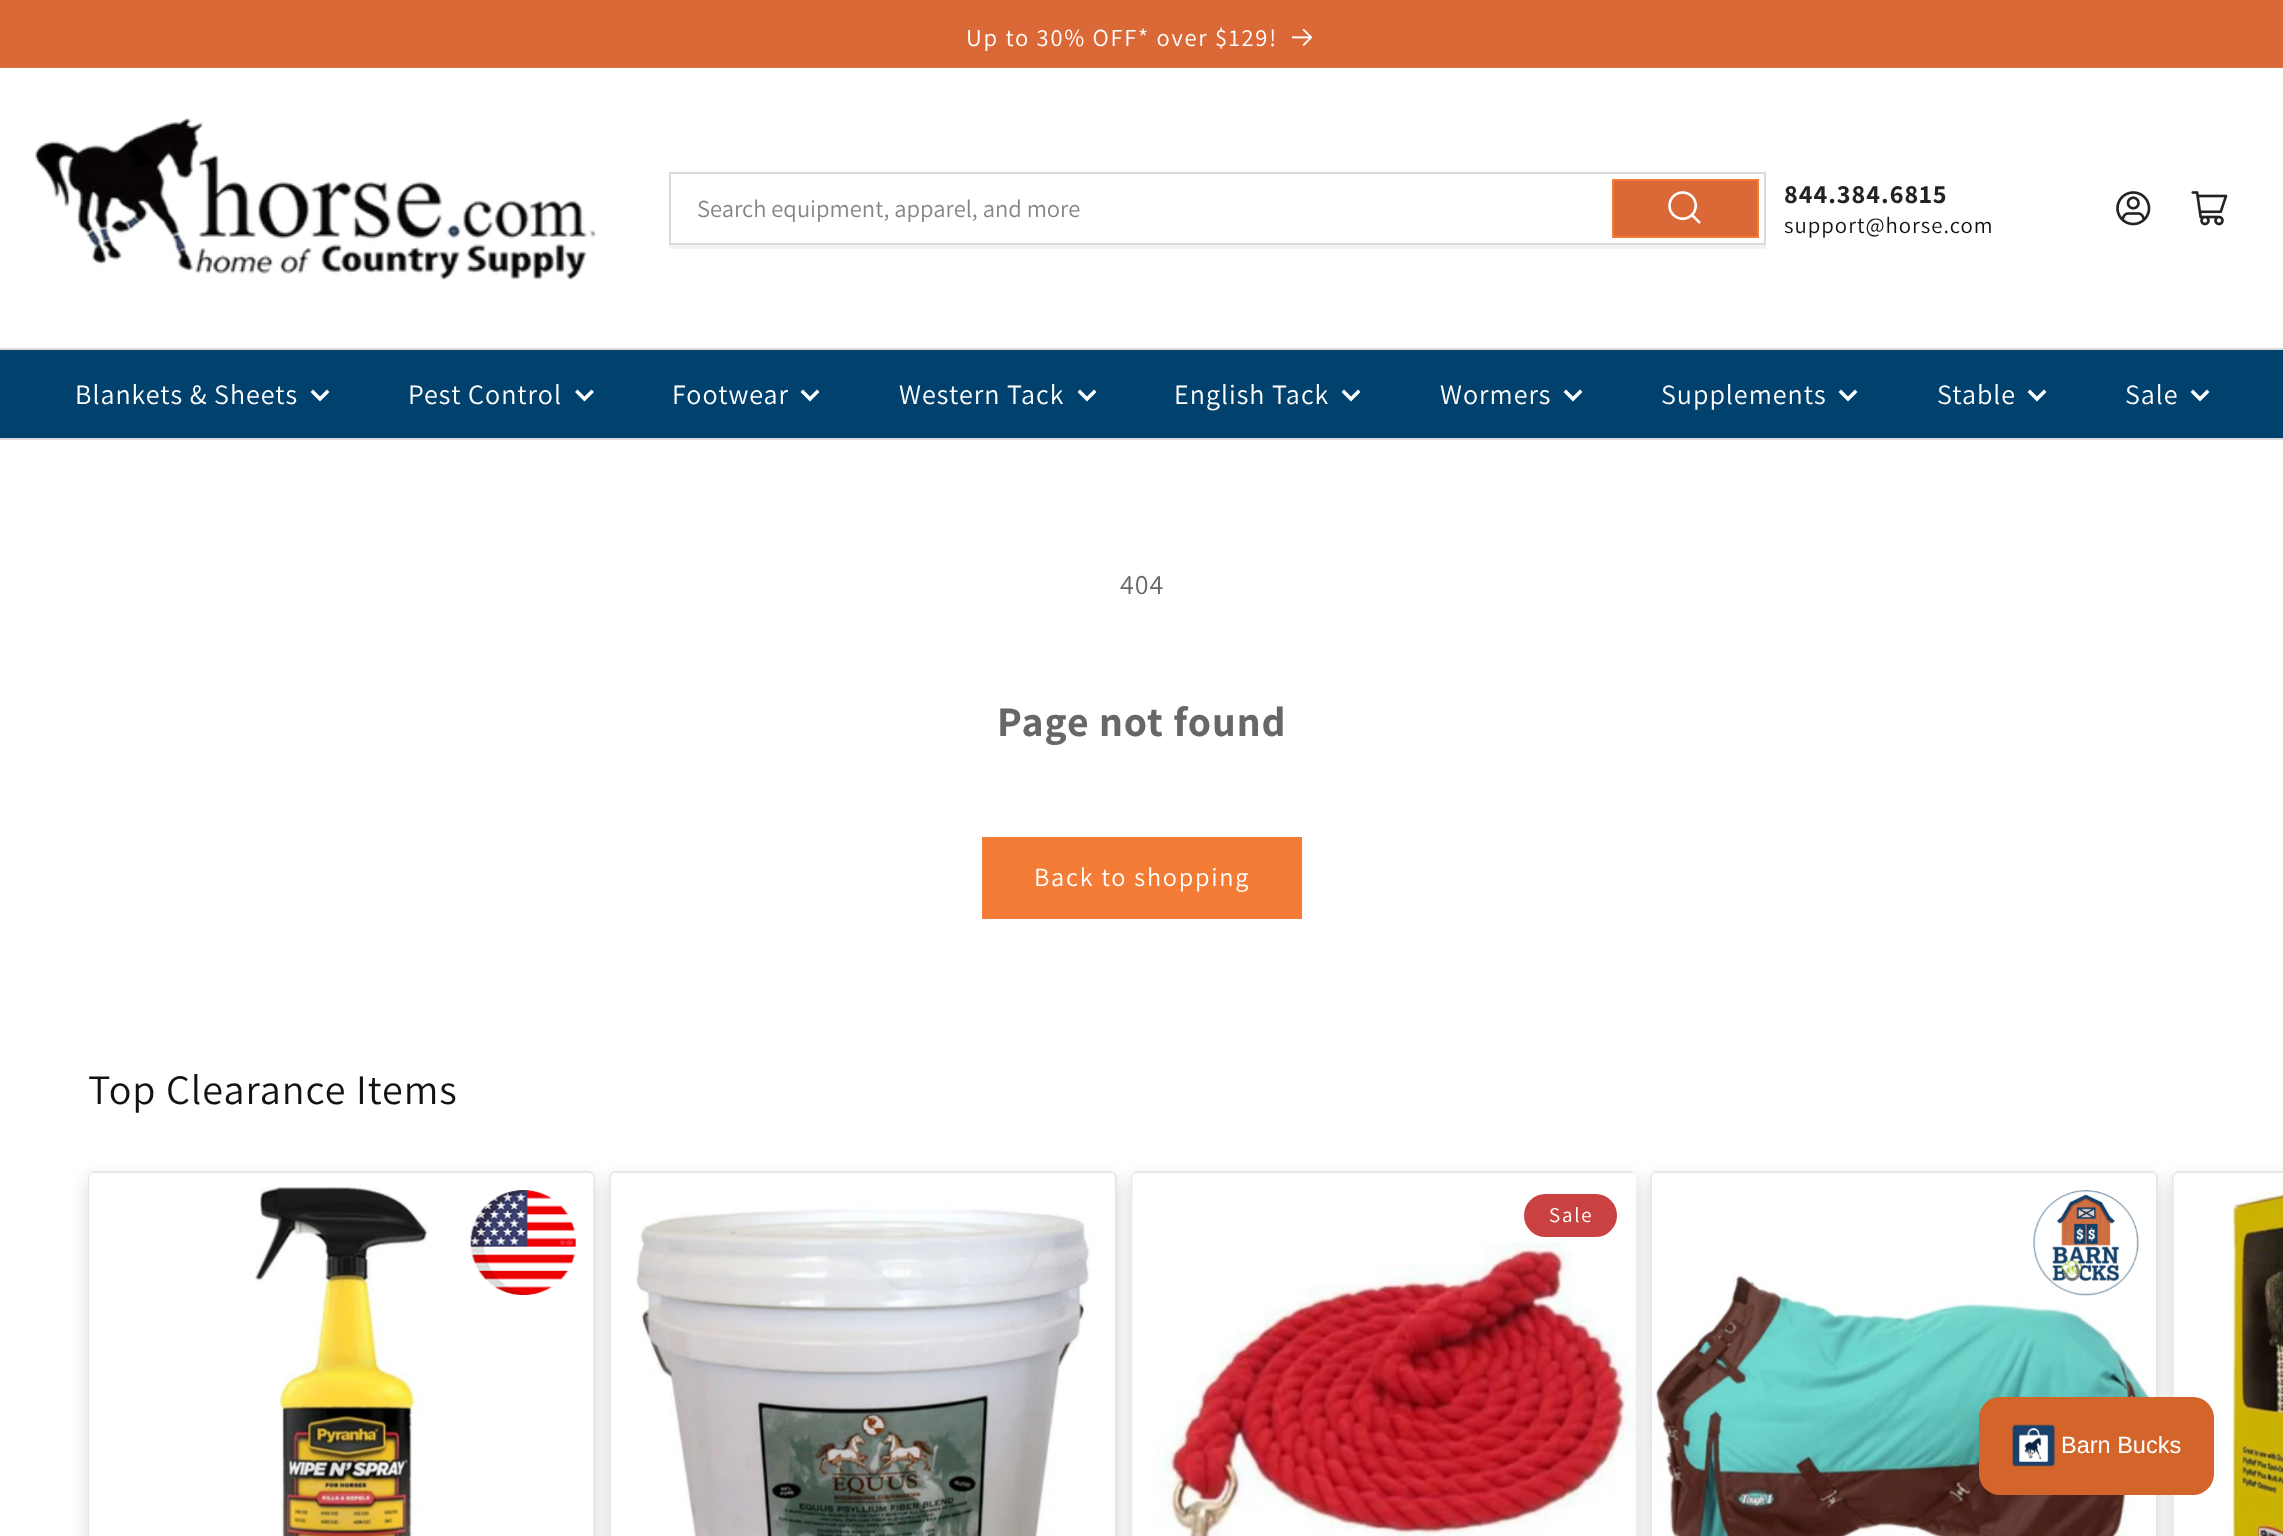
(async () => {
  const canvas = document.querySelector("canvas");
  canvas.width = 2283;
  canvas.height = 1536;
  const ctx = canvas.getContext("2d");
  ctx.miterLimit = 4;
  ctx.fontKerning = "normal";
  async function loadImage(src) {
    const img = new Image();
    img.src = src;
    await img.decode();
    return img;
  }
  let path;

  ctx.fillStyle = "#ffffff";
  ctx.fillRect(0, 0, 2283, 1536);
  ctx.fillStyle = "#db6837";
  ctx.fillRect(0, 0, 2283, 67);
  ctx.fillStyle = "#de7447";
  ctx.fillRect(0, 67, 2283, 1);
  ctx.drawImage(await loadImage("img/1.png"), 1292, 28, 21, 18);
  ctx.drawImage(await loadImage("img/2.png"), 35, 118, 560, 163);
  ctx.fillStyle = "#f4f4f4";
  path = new Path2D("M669 245V249H1766V175V245Z");
  ctx.fill(path);
  ctx.strokeStyle = "#dadada";
  ctx.lineWidth = 2;
  ctx.strokeRect(670, 173, 1095, 71);
  ctx.fillStyle = "#db6837";
  ctx.fillRect(1614, 181, 143, 55);
  ctx.drawImage(await loadImage("img/3.png"), 1668, 191, 33, 33);
  ctx.strokeStyle = "#f57c36";
  ctx.strokeRect(1613, 180, 145, 57);
  ctx.drawImage(await loadImage("img/4.png"), 2116, 191, 35, 35);
  ctx.drawImage(await loadImage("img/5.png"), 2191, 191, 37, 35);
  for (const [x, y, w, h, color] of [
    [0, 350, 2283, 88, "#00416d"],
    [0, 348, 2283, 2, "#dadada"],
    [0, 438, 2283, 2, "#dadada"],
  ]) {
    ctx.fillStyle = color;
    ctx.fillRect(x, y, w, h);
  }
  path = new Path2D("M327 392L320 399L313 392");
  ctx.strokeStyle = "#ffffff";
  ctx.lineWidth = 3.5;
  ctx.lineCap = "square";
  ctx.stroke(path);
  path = new Path2D("M591.5 392L584.5 399L577.5 392");
  ctx.stroke(path);
  path = new Path2D("M817 392L810 399L803 392");
  ctx.stroke(path);
  path = new Path2D("M1094 392L1087 399L1080 392");
  ctx.stroke(path);
  path = new Path2D("M1358 392L1351 399L1344 392");
  ctx.stroke(path);
  path = new Path2D("M1580 392L1573 399L1566 392");
  ctx.stroke(path);
  path = new Path2D("M1855 392L1848 399L1841 392");
  ctx.stroke(path);
  path = new Path2D("M2044 392L2037 399L2030 392");
  ctx.stroke(path);
  path = new Path2D("M2207 392L2200 399L2193 392");
  ctx.stroke(path);
  ctx.fillStyle = "#f57c36";
  ctx.fillRect(982, 837, 320, 82);
  ctx.beginPath();
  ctx.roundRect(89, 1172, 505, 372, 6);
  ctx.strokeStyle = "#e7e7e7";
  ctx.lineWidth = 2;
  ctx.stroke();
  ctx.save();
  path = new Path2D("M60 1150H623V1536H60ZM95 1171H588C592 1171 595 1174 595 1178V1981C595 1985 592 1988 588 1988H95C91 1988 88 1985 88 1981V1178C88 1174 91 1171 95 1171Z");
  ctx.clip(path, "evenodd");
  ctx.fillStyle = "rgba(18, 18, 18, 0.15)";
  ctx.filter = "blur(9px)";
  ctx.beginPath();
  ctx.roundRect(88, 1178, 507, 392, 7);
  ctx.fill();
  ctx.filter = "none";
  ctx.restore();
  ctx.drawImage(await loadImage("img/6.png"), 89, 1173, 505, 363);
  ctx.drawImage(await loadImage("img/7.png"), 470, 1190, 106, 105);
  ctx.beginPath();
  ctx.roundRect(610, 1172, 506, 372, 6);
  ctx.stroke();
  ctx.save();
  path = new Path2D("M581 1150H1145V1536H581ZM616 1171H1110C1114 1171 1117 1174 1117 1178V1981C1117 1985 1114 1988 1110 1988H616C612 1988 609 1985 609 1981V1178C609 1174 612 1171 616 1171Z");
  ctx.clip(path, "evenodd");
  ctx.fillStyle = "rgba(18, 18, 18, 0.15)";
  ctx.filter = "blur(9px)";
  ctx.beginPath();
  ctx.roundRect(609, 1178, 508, 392, 7);
  ctx.fill();
  ctx.filter = "none";
  ctx.restore();
  ctx.drawImage(await loadImage("img/8.png"), 610, 1173, 504, 363);
  ctx.beginPath();
  ctx.roundRect(1132, 1172, 503, 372, 6);
  ctx.stroke();
  ctx.save();
  path = new Path2D("M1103 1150H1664V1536H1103ZM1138 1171H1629C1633 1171 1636 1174 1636 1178V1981C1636 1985 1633 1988 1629 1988H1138C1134 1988 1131 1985 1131 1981V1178C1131 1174 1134 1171 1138 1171Z");
  ctx.clip(path, "evenodd");
  ctx.fillStyle = "rgba(18, 18, 18, 0.15)";
  ctx.filter = "blur(9px)";
  ctx.beginPath();
  ctx.roundRect(1131, 1178, 505, 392, 7);
  ctx.fill();
  ctx.filter = "none";
  ctx.restore();
  ctx.drawImage(await loadImage("img/9.png"), 1132, 1173, 504, 363);
  ctx.fillStyle = "#ca4141";
  ctx.beginPath();
  ctx.roundRect(1525, 1195, 91, 41, 20.5);
  ctx.fill();
  ctx.strokeStyle = "#ca4141";
  ctx.stroke();
  ctx.beginPath();
  ctx.roundRect(1651, 1172, 506, 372, 6);
  ctx.strokeStyle = "#e7e7e7";
  ctx.stroke();
  ctx.save();
  path = new Path2D("M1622 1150H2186V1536H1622ZM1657 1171H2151C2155 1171 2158 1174 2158 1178V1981C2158 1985 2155 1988 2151 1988H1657C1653 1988 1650 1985 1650 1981V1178C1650 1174 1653 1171 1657 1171Z");
  ctx.clip(path, "evenodd");
  ctx.fillStyle = "rgba(18, 18, 18, 0.15)";
  ctx.filter = "blur(9px)";
  ctx.beginPath();
  ctx.roundRect(1650, 1178, 508, 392, 7);
  ctx.fill();
  ctx.filter = "none";
  ctx.restore();
  ctx.drawImage(await loadImage("img/10.png"), 1652, 1173, 504, 363);
  ctx.drawImage(await loadImage("img/11.png"), 2033, 1190, 106, 106);
  ctx.beginPath();
  ctx.roundRect(2173, 1172, 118, 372, 6);
  ctx.stroke();
  ctx.save();
  path = new Path2D("M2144 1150H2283V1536H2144ZM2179 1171H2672C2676 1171 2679 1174 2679 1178V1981C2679 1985 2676 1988 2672 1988H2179C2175 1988 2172 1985 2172 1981V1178C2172 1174 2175 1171 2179 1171Z");
  ctx.clip(path, "evenodd");
  ctx.fillStyle = "rgba(18, 18, 18, 0.15)";
  ctx.filter = "blur(9px)";
  ctx.beginPath();
  ctx.roundRect(2172, 1178, 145, 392, 7);
  ctx.fill();
  ctx.filter = "none";
  ctx.restore();
  ctx.drawImage(await loadImage("img/12.png"), 2173, 1173, 110, 363);
  ctx.fillStyle = "#d3652a";
  ctx.beginPath();
  ctx.roundRect(1979, 1397, 235, 98, 21);
  ctx.fill();
  ctx.drawImage(await loadImage("img/13.png"), 2012, 1424, 43, 43);
  ctx.letterSpacing = "1.75px";
  ctx.font = "24.5px Assistant";
  ctx.fillStyle = "#ffffff";
  ctx.fillText("Up to 30% OFF* over $129!", 966, 46);
  ctx.letterSpacing = "0px";
  ctx.fillStyle = "#858585";
  ctx.fillText("Search equipment, apparel, and more", 697, 217);
  ctx.letterSpacing = "1px";
  ctx.font = "bold 26.25px Assistant";
  ctx.fillStyle = "#232323";
  ctx.fillText("844.384.6815", 1784, 203);
  ctx.font = "22.75px Assistant";
  ctx.fillStyle = "#121212";
  ctx.fillText("support@horse.com", 1784, 233);
  ctx.font = "28px Assistant";
  ctx.fillStyle = "#ffffff";
  for (const [text, x, y] of [
    ["Blankets & Sheets", 75, 404],
    ["Pest Control", 408, 404],
    ["Footwear", 672, 404],
    ["Western Tack", 899, 404],
    ["English Tack", 1174, 404],
    ["Wormers", 1440, 404],
    ["Supplements", 1661, 404],
    ["Stable", 1937, 404],
    ["Sale", 2125, 404],
  ]) {
    ctx.fillText(text, x, y);
  }
  ctx.fillStyle = "#676767";
  ctx.fillText("404", 1120, 594);
  ctx.font = "bold 42px Assistant";
  ctx.fillText("Page not found", 997, 736);
  ctx.letterSpacing = "1.75px";
  ctx.font = "26.25px Assistant";
  ctx.fillStyle = "#ffffff";
  ctx.fillText("Back to shopping", 1034, 886);
  ctx.letterSpacing = "1px";
  ctx.font = "42px Assistant";
  ctx.fillStyle = "#121212";
  ctx.fillText("Top Clearance Items", 88, 1104);
  ctx.letterSpacing = "1.75px";
  ctx.font = "21px Assistant";
  ctx.fillStyle = "#ffffff";
  ctx.fillText("Sale", 1549, 1222);
  ctx.letterSpacing = "0px";
  ctx.font = "23.5px Liberation Sans";
  ctx.fillText("Barn Bucks", 2061, 1453);
})();
